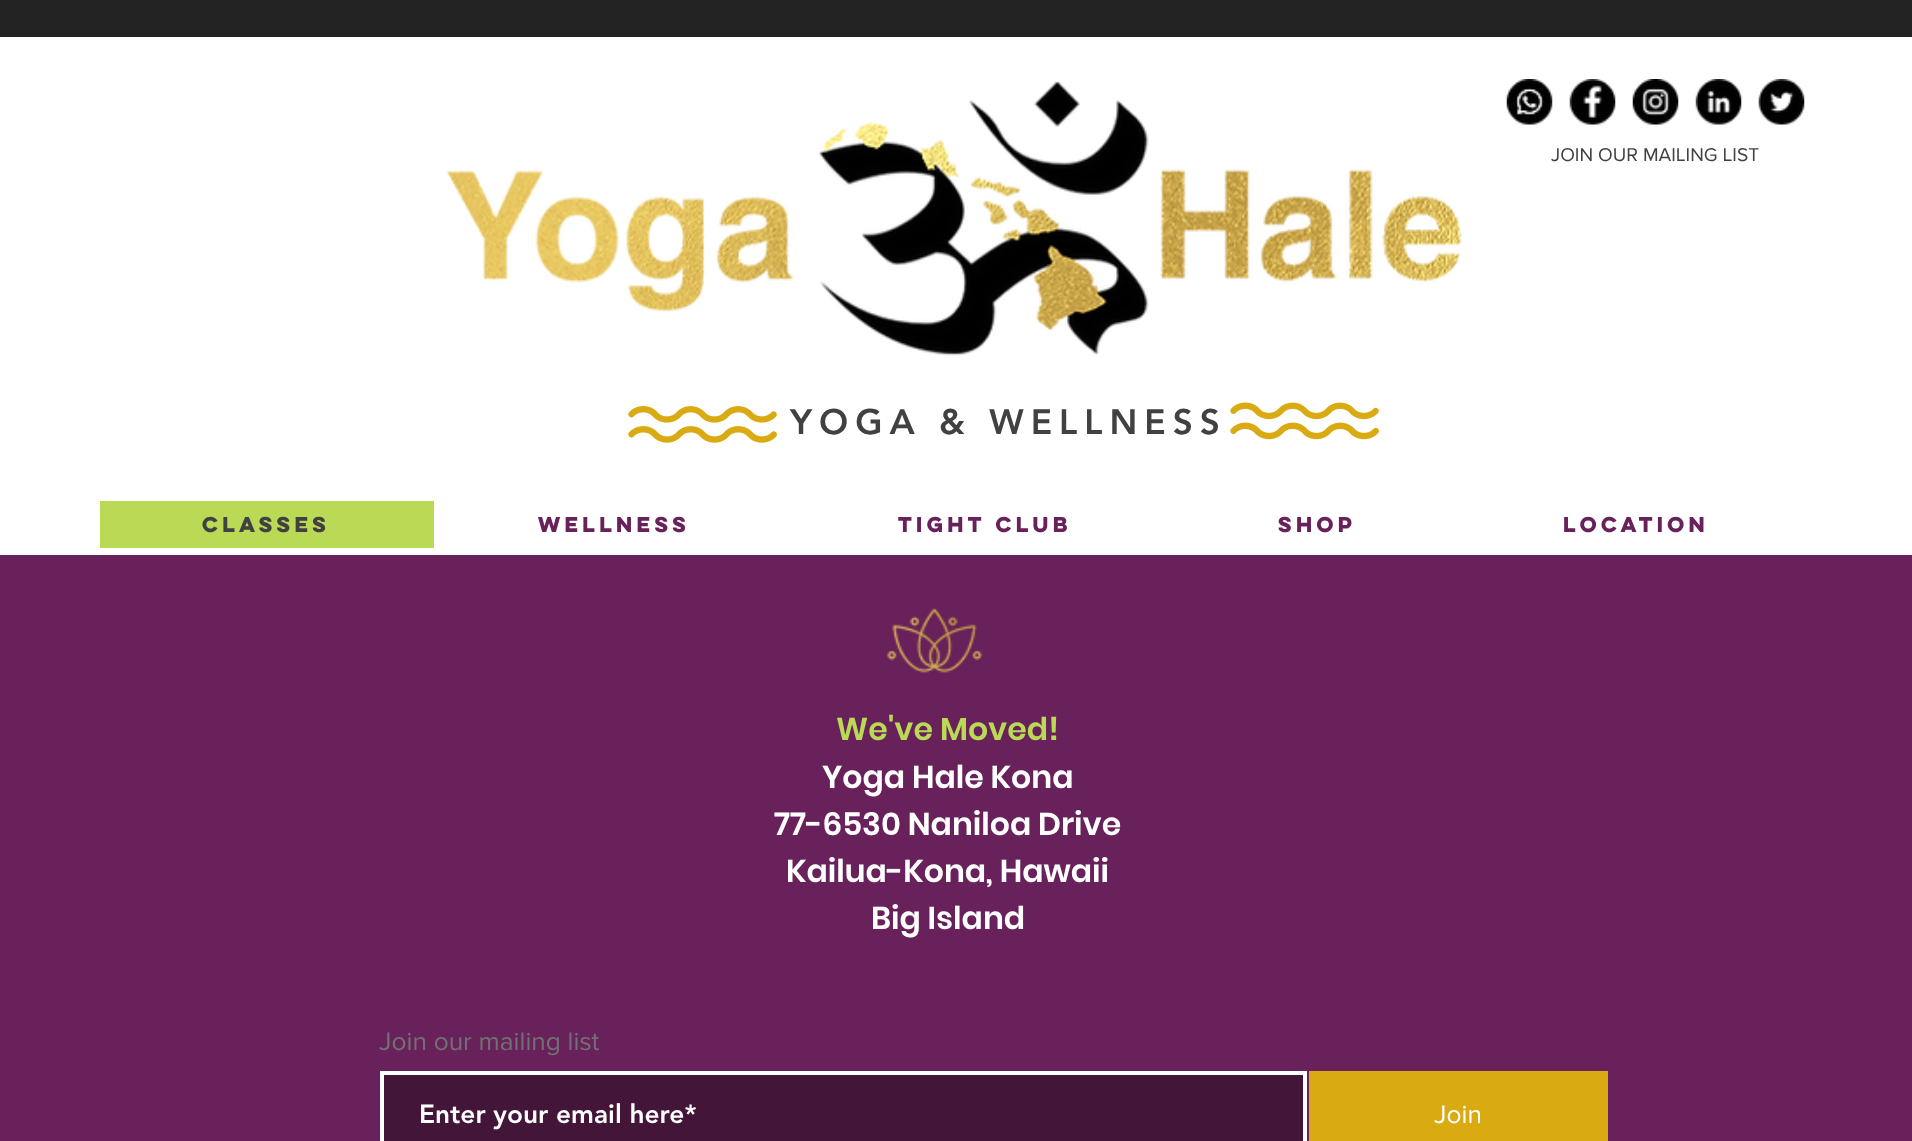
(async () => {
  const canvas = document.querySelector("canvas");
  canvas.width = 1912;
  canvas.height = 1141;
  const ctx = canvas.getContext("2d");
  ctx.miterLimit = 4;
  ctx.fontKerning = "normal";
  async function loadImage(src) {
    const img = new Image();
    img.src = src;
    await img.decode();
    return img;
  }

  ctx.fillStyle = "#69215b";
  ctx.fillRect(0, 0, 1912, 1141);
  ctx.fillStyle = "#ffffff";
  ctx.fillRect(0, 37, 1912, 518);
  ctx.fillStyle = "#242323";
  ctx.fillRect(0, 0, 1912, 37);
  ctx.drawImage(await loadImage("img/1.png"), 446, 81, 1016, 275);
  ctx.drawImage(await loadImage("img/2.png"), 1506, 79, 47, 46);
  ctx.drawImage(await loadImage("img/3.png"), 1569, 79, 47, 46);
  ctx.drawImage(await loadImage("img/4.png"), 1632, 79, 47, 46);
  ctx.drawImage(await loadImage("img/5.png"), 1695, 79, 47, 46);
  ctx.drawImage(await loadImage("img/6.png"), 1758, 79, 47, 46);
  ctx.drawImage(await loadImage("img/7.png"), 628, 406, 149, 37);
  ctx.drawImage(await loadImage("img/8.png"), 1230, 402, 149, 38);
  ctx.fillStyle = "#bada55";
  ctx.fillRect(100, 501, 334, 47);
  ctx.drawImage(await loadImage("img/9.png"), 886, 607, 97, 66);
  ctx.fillStyle = "#421539";
  ctx.beginPath();
  ctx.rect(382, 1073, 923, 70);
  ctx.fill();
  ctx.strokeStyle = "#ffffff";
  ctx.lineWidth = 4;
  ctx.stroke();
  ctx.fillStyle = "#d9aa11";
  ctx.fillRect(1309, 1071, 299, 70);
  ctx.font = "19.25px 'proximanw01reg'";
  ctx.fillStyle = "#414141";
  ctx.fillText("JOIN OUR MAILING LIST", 1551, 161);
  ctx.letterSpacing = "7px";
  ctx.font = "900 35px 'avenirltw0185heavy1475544'";
  ctx.fillText("YOGA & WELLNESS", 790, 434);
  ctx.letterSpacing = "0px";
  ctx.font = "bold 19.25px 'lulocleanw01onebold'";
  ctx.fillText("CLASSES", 202, 532);
  ctx.fillStyle = "#69215b";
  for (const [text, x, y] of [
    ["WELLNESS", 538, 532],
    ["TIGHT CLUB", 898, 532],
    ["SHOP", 1278, 532],
    ["LOCATION", 1563, 532],
  ]) {
    ctx.fillText(text, x, y);
  }
  ctx.font = "600 31.5px Poppins";
  ctx.fillStyle = "#bada55";
  ctx.fillText("We've Moved!", 836, 740);
  ctx.fillStyle = "#ffffff";
  for (const [text, x, y] of [
    ["Yoga Hale Kona", 822, 788],
    ["77-6530 Naniloa Drive", 774, 835],
    ["Kailua-Kona, Hawaii", 786, 882],
    ["Big Island", 871, 929],
  ]) {
    ctx.fillText(text, x, y);
  }
  ctx.font = "26.25px 'proximanw01reg'";
  ctx.fillStyle = "#717171";
  ctx.fillText("Join our mailing list", 379, 1050);
  ctx.font = "900 26.25px 'avenirltw0185heavy1475544'";
  ctx.fillStyle = "#ffffff";
  ctx.fillText("Enter your email here*", 419, 1123);
  ctx.font = "26.25px 'proximanw01reg'";
  ctx.fillText("Join", 1434, 1123);
})();
